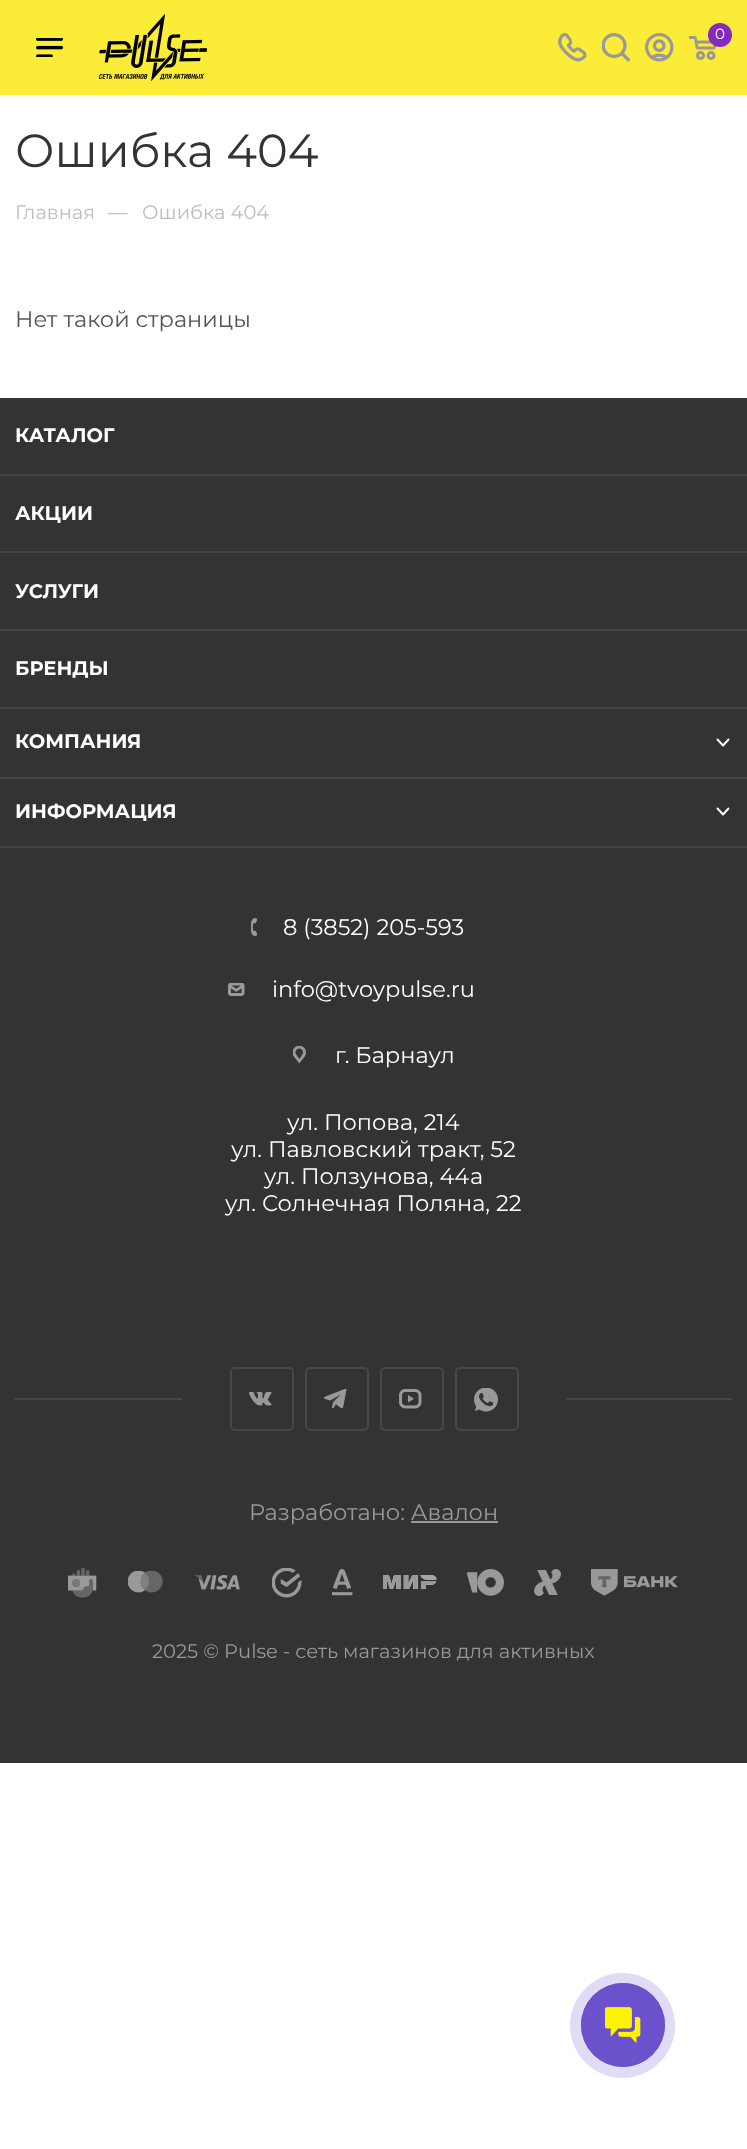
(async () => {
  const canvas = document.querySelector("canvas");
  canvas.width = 747;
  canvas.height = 2149;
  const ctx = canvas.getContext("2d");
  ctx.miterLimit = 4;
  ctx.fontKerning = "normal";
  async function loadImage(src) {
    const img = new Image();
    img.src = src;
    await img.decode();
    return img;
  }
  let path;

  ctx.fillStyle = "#ffffff";
  ctx.fillRect(0, 0, 747, 2149);
  ctx.fillStyle = "#faec37";
  ctx.fillRect(0, 0, 747, 95);
  ctx.drawImage(await loadImage("img/1.png"), 99, 14, 108, 67);
  ctx.drawImage(await loadImage("img/2.png"), 558, 33, 29, 29);
  ctx.drawImage(await loadImage("img/3.png"), 602, 33, 28, 29);
  ctx.drawImage(await loadImage("img/4.png"), 645, 33, 29, 29);
  ctx.drawImage(await loadImage("img/5.png"), 689, 36, 28, 24);
  ctx.fillStyle = "#852abf";
  ctx.beginPath();
  ctx.arc(720, 35, 12, 0, Math.PI * 2);
  ctx.fill();
  ctx.drawImage(await loadImage("img/6.png"), 36, 38, 27, 19);
  for (const [x, y, w, h, color] of [
    [0, 398, 747, 1365, "#333333"],
    [0, 474, 747, 2, "#434343"],
    [0, 551, 747, 2, "#434343"],
    [0, 629, 747, 2, "#434343"],
    [0, 707, 747, 2, "#434343"],
    [0, 777, 747, 2, "#434343"],
  ]) {
    ctx.fillStyle = color;
    ctx.fillRect(x, y, w, h);
  }
  path = new Path2D("M728.5 739.5L723 745.5L717.5 739.5");
  ctx.strokeStyle = "#ffffff";
  ctx.lineWidth = 1.9;
  ctx.lineCap = "round";
  ctx.lineJoin = "round";
  ctx.stroke(path);
  ctx.fillRect(0, 846, 747, 2);
  path = new Path2D("M728.5 808.5L723 814.5L717.5 808.5");
  ctx.stroke(path);
  ctx.drawImage(await loadImage("img/7.png"), 251, 918, 6, 18);
  ctx.drawImage(await loadImage("img/8.png"), 228, 983, 17, 13);
  ctx.drawImage(await loadImage("img/9.png"), 293, 1046, 13, 18);
  ctx.fillStyle = "#474747";
  ctx.fillRect(15, 1398, 167, 2);
  ctx.beginPath();
  ctx.roundRect(231, 1368, 62, 62, 4);
  ctx.strokeStyle = "#474747";
  ctx.lineWidth = 2;
  ctx.lineJoin = "miter";
  ctx.stroke();
  ctx.drawImage(await loadImage("img/10.png"), 249, 1392, 23, 14);
  ctx.beginPath();
  ctx.roundRect(306, 1368, 62, 62, 4);
  ctx.stroke();
  ctx.drawImage(await loadImage("img/11.png"), 324, 1389, 23, 20);
  ctx.beginPath();
  ctx.roundRect(381, 1368, 62, 62, 4);
  ctx.stroke();
  ctx.drawImage(await loadImage("img/12.png"), 399, 1389, 23, 20);
  ctx.beginPath();
  ctx.roundRect(456, 1368, 62, 62, 4);
  ctx.stroke();
  ctx.drawImage(await loadImage("img/13.png"), 474, 1388, 24, 24);
  ctx.fillRect(567, 1398, 165, 2);
  ctx.fillStyle = "#999999";
  ctx.fillRect(411, 1521, 87, 2);
  ctx.drawImage(await loadImage("img/14.png"), 68, 1568, 29, 30);
  ctx.drawImage(await loadImage("img/15.png"), 128, 1571, 35, 22);
  ctx.drawImage(await loadImage("img/16.png"), 195, 1575, 45, 15);
  ctx.drawImage(await loadImage("img/17.png"), 272, 1568, 30, 30);
  ctx.drawImage(await loadImage("img/18.png"), 332, 1569, 21, 27);
  ctx.drawImage(await loadImage("img/19.png"), 383, 1575, 54, 14);
  ctx.drawImage(await loadImage("img/20.png"), 467, 1569, 37, 27);
  ctx.drawImage(await loadImage("img/21.png"), 534, 1569, 27, 27);
  ctx.drawImage(await loadImage("img/22.png"), 591, 1569, 87, 27);
  ctx.fillStyle = "#e1dcf5";
  ctx.beginPath();
  ctx.arc(622.5, 2025.5, 52.5, 0, Math.PI * 2);
  ctx.fill();
  ctx.beginPath();
  ctx.arc(623, 2025, 41.5, 0, Math.PI * 2);
  ctx.strokeStyle = "#6b52cc";
  ctx.lineWidth = 1;
  ctx.stroke();
  ctx.fillStyle = "#6b52cc";
  ctx.beginPath();
  ctx.arc(623, 2025, 42, 0, Math.PI * 2);
  ctx.fill();
  ctx.drawImage(await loadImage("img/23.png"), 605, 2007, 36, 36);
  ctx.font = "15px Montserrat";
  ctx.fillStyle = "#fffffe";
  ctx.fillText("0", 715, 39);
  ctx.font = "46.5px Montserrat";
  ctx.fillStyle = "#333333";
  ctx.fillText("Ошибка 404", 15, 167);
  ctx.font = "19.5px Montserrat";
  ctx.fillStyle = "#bfbcbc";
  ctx.fillText("Главная", 15, 219);
  ctx.fillStyle = "#b6b5b5";
  ctx.fillText("—", 108, 219);
  ctx.fillStyle = "#bfbcbc";
  ctx.fillText("Ошибка 404", 142, 219);
  ctx.font = "22.5px Montserrat";
  ctx.fillStyle = "#555555";
  ctx.fillText("Нет такой страницы", 15, 327);
  ctx.font = "bold 19.5px Montserrat";
  ctx.fillStyle = "#fffffe";
  for (const [text, x, y] of [
    ["КАТАЛОГ", 15, 442],
    ["АКЦИИ", 15, 520],
    ["УСЛУГИ", 15, 598],
    ["БРЕНДЫ", 15, 675],
    ["КОМПАНИЯ", 15, 748],
    ["ИНФОРМАЦИЯ", 15, 818],
  ]) {
    ctx.fillText(text, x, y);
  }
  ctx.font = "22.5px Montserrat";
  for (const [text, x, y] of [
    ["8 (3852) 205-593", 283, 935],
    ["info@tvoypulse.ru", 272, 997],
    ["г. Барнаул", 335, 1063],
    ["ул. Попова, 214", 287, 1130],
    ["ул. Павловский тракт, 52", 231, 1157],
    ["ул. Ползунова, 44а", 264, 1184],
    ["ул. Солнечная Поляна, 22", 225, 1211],
  ]) {
    ctx.fillText(text, x, y);
  }
  ctx.fillStyle = "#999999";
  ctx.fillText("Разработано: Авалон", 249, 1520);
  ctx.font = "19.5px Montserrat";
  ctx.fillText("2025 © Pulse - сеть магазинов для активных", 152, 1658);
})();
